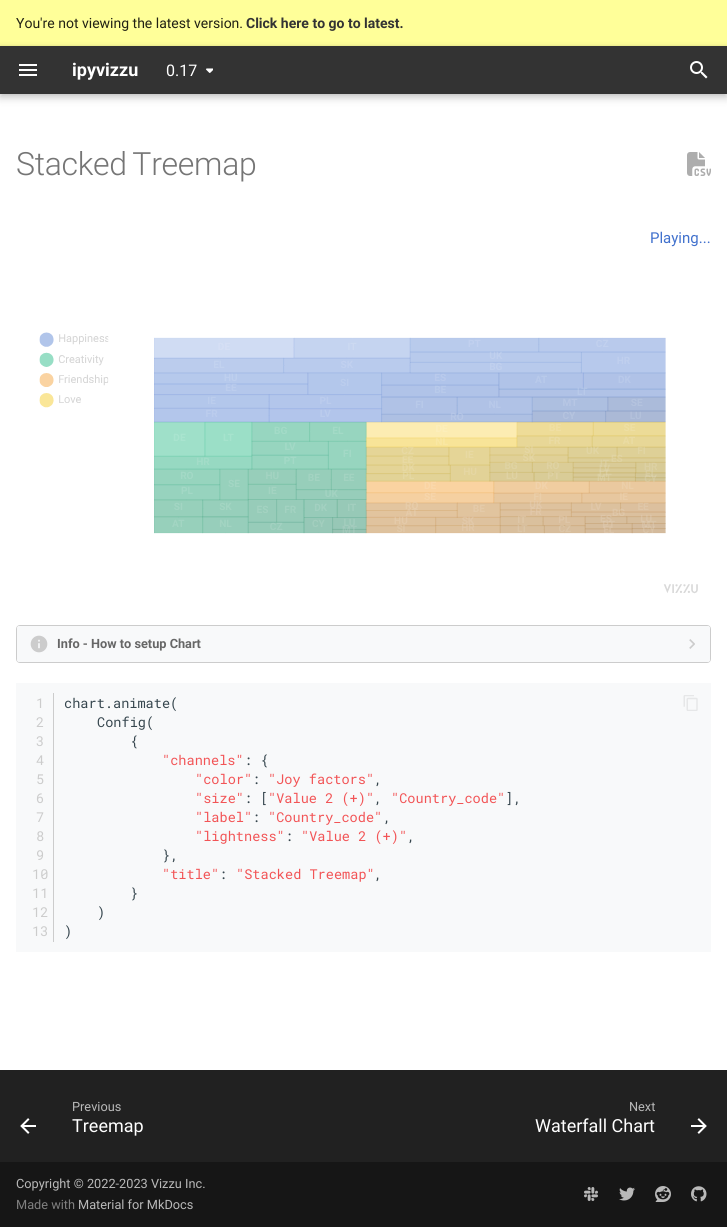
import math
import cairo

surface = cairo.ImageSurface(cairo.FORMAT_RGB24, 727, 1227)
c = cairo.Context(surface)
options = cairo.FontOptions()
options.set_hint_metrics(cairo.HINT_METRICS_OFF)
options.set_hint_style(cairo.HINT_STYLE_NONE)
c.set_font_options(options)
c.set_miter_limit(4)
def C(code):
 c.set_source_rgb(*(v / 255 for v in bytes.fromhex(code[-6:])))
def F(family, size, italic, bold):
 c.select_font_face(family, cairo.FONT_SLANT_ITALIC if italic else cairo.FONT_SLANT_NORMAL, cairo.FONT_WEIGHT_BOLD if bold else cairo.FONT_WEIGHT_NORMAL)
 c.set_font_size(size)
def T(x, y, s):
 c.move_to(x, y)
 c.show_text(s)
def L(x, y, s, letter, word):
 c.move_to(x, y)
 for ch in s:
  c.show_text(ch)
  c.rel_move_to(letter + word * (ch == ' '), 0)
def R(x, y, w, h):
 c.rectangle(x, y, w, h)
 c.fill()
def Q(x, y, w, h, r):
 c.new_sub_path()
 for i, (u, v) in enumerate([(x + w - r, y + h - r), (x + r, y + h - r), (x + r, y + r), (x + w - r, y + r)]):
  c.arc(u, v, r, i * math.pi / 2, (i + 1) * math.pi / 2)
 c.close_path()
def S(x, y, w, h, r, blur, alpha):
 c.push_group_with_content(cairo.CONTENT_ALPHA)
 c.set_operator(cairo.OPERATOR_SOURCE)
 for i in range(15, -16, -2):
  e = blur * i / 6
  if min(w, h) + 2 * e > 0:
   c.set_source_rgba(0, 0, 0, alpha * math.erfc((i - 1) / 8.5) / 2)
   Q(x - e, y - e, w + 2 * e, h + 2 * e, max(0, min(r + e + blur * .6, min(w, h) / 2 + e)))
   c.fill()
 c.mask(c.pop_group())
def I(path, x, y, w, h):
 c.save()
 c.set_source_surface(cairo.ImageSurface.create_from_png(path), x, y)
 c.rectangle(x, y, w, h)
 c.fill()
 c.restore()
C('ffffff')
c.paint()
C('ffff99')
R(0,0,727,46)
F('Roboto',14,0,0)
C('212114')
T(16,28,'You\'re not viewing the latest version.')
F('Roboto',14,0,1)
C('333333')
T(246,28,'Click here to go to latest.')
C('000000')
S(0,50,727,48,0,4,.2)
S(0,46,727,48,0,2,.1)
C('333333')
R(0,46,727,48)
I('1.png',19,64,18,12)
F('Roboto',18,0,1)
C('ffffff')
T(72,76,'ipyvizzu')
F('Roboto',16,0,0)
T(166,76,'0.17')
I('2.png',206,68,7,5)
I('3.png',690,61,18,18)
F('Roboto Light',32,0,0)
C('757575')
L(16,175,'Stacked Treemap',-.3,-2)
I('4.png',687,152,24,24)
F('Roboto',15,0,0)
C('4171cd')
T(650,243,'Playing...')
I('5.png',39,332,659,262)
Q(16.5,625.5,694,37,3.5)
C('cccccc')
c.set_line_width(1)
c.stroke()
C('f8f9fa')
Q(17,626,693,36,2)
c.fill()
I('6.png',30,635,18,18)
F('Roboto',12.75,0,1)
C('666666')
T(57,648,'Info - How to setup Chart')
I('7.png',689,639,6,10)
C('f8f9fa')
R(16,683,695,269)
F('Roboto Mono',13.6,0,0)
C('cccccc')
T(36,708,'1')
C('36464e')
T(64,708,'chart.animate(')
C('cccccc')
T(36,727,'2')
C('36464e')
T(97,727,'Config(')
C('cccccc')
T(36,746,'3')
C('36464e')
T(130,746,'{')
C('cccccc')
T(36,765,'4')
C('f25456')
T(162,765,'"channels"')
C('36464e')
T(244,765,': {')
C('cccccc')
T(36,784,'5')
C('f25456')
T(195,784,'"color"')
C('36464e')
T(252,784,':')
C('f25456')
T(268,784,'"Joy factors"')
C('36464e')
T(374,784,',')
C('cccccc')
T(36,803,'6')
C('f25456')
T(195,803,'"size"')
C('36464e')
T(244,803,': [')
C('f25456')
T(268,803,'"Value 2 (+)"')
C('36464e')
T(374,803,',')
C('f25456')
T(391,803,'"Country_code"')
C('36464e')
T(505,803,'],')
C('cccccc')
T(36,822,'7')
C('f25456')
T(195,822,'"label"')
C('36464e')
T(252,822,':')
C('f25456')
T(268,822,'"Country_code"')
C('36464e')
T(383,822,',')
C('cccccc')
T(36,841,'8')
C('f25456')
T(195,841,'"lightness"')
C('36464e')
T(285,841,':')
C('f25456')
T(301,841,'"Value 2 (+)"')
C('36464e')
T(407,841,',')
C('cccccc')
T(36,860,'9')
C('36464e')
T(162,860,'},')
C('cccccc')
T(32,879,'10')
C('f25456')
T(162,879,'"title"')
C('36464e')
T(219,879,':')
C('f25456')
T(236,879,'"Stacked Treemap"')
C('36464e')
T(374,879,',')
C('cccccc')
T(32,898,'11')
C('36464e')
T(130,898,'}')
C('cccccc')
T(32,917,'12')
C('36464e')
T(97,917,')')
C('cccccc')
R(53,693,1,249)
T(32,936,'13')
C('36464e')
T(64,936,')')
I('8.png',683,695,15,16)
C('212121')
R(0,1070,727,92)
I('9.png',20,1118,16,16)
F('Roboto',12.75,0,0)
C('b9b9b9')
T(72,1111,'Previous')
F('Roboto',18,0,0)
C('ffffff')
T(72,1132,'Treemap')
F('Roboto',12.75,0,0)
C('b9b9b9')
T(629,1111,'Next')
F('Roboto',18,0,0)
C('ffffff')
T(535,1132,'Waterfall Chart')
I('10.png',691,1118,16,16)
C('161616')
R(0,1162,727,65)
F('Roboto',12.75,0,0)
C('b9b9b9')
T(16,1188,'Copyright © 2022-2023 Vizzu Inc.')
C('7f7f7f')
T(16,1209,'Made with')
C('b9b9b9')
T(78,1209,'Material for MkDocs')
I('11.png',584,1187,14,14)
I('12.png',619,1187,16,14)
I('13.png',655,1186,16,16)
I('14.png',691,1186,16,16)
surface.write_to_png('o.png')
